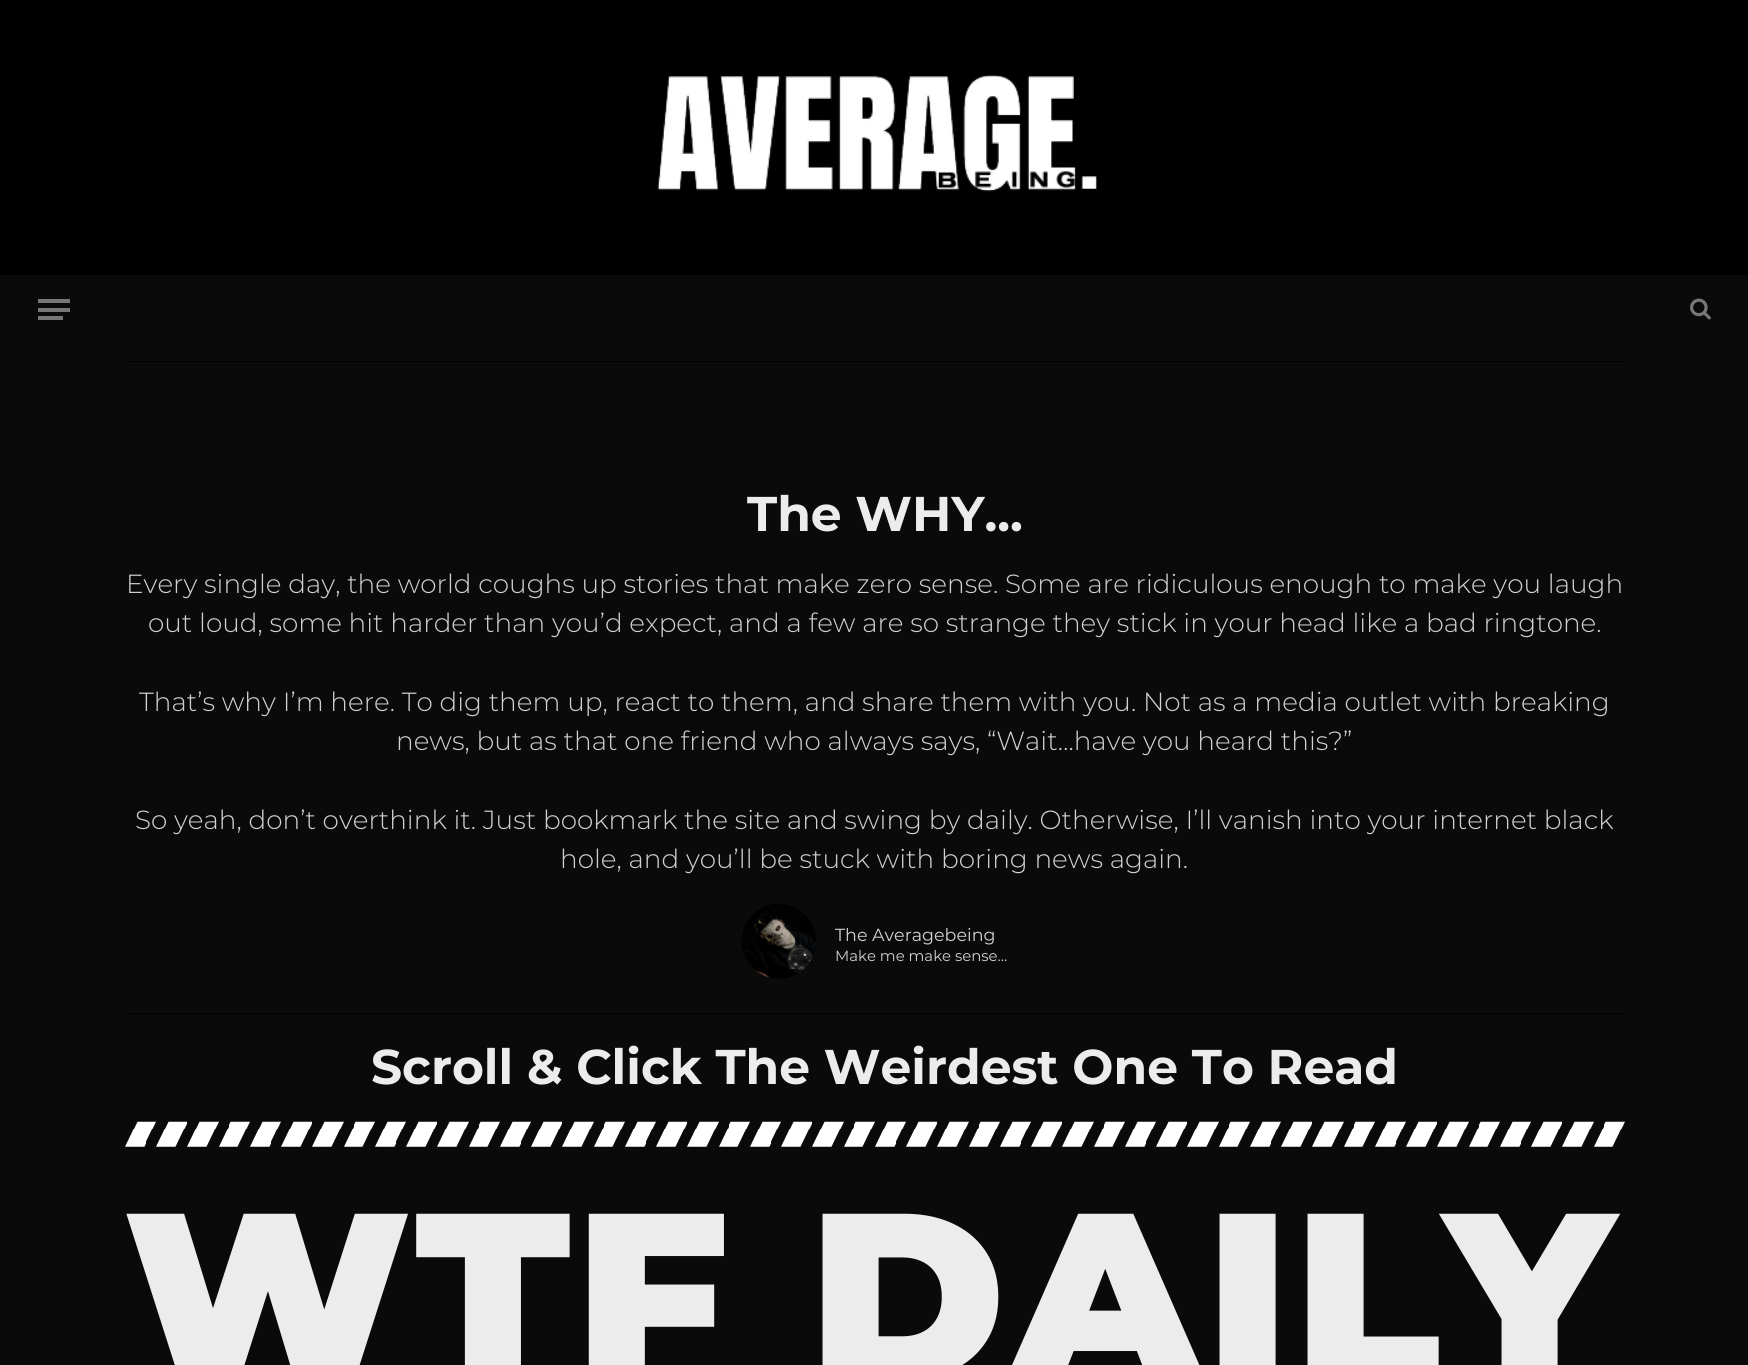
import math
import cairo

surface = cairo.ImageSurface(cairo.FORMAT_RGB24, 1748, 1365)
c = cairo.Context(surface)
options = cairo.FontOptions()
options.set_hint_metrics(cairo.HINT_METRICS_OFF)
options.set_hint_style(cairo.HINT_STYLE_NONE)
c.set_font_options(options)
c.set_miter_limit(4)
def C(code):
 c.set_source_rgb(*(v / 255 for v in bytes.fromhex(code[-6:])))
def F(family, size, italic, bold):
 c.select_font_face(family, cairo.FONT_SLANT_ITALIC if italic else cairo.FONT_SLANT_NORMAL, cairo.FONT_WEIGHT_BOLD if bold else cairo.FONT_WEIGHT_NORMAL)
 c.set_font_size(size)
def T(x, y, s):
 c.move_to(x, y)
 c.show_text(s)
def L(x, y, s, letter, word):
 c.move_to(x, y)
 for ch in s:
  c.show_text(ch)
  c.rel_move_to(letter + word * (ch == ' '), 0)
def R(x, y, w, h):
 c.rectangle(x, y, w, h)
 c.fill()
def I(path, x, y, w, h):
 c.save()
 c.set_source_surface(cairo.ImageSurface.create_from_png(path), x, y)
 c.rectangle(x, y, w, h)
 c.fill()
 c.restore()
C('0a0a0a')
c.paint()
C('000000')
R(0,0,1748,275)
I('1.png',657,75,440,117)
C('777777')
R(38,316,25,4)
R(38,299,32,4)
R(38,308,32,4)
I('2.png',1690,298,21,22)
C('000000')
R(125,361,1500,1)
F('Montserrat',48.75,0,1)
C('ececec')
T(747,531,'The WHY...')
F('Montserrat Light',26.25,0,0)
C('d1d1d1')
T(126,593,'Every single day, the world coughs up stories that make zero sense. Some are ridiculous enough to make you laugh')
T(148,632,'out loud, some hit harder than you’d expect, and a few are so strange they stick in your head like a bad ringtone.')
T(139,711,'That’s why I’m here. To dig them up, react to them, and share them with you. Not as a media outlet with breaking')
T(396,750,'news, but as that one friend who always says, “Wait…have you heard this?”')
T(135,829,'So yeah, don’t overthink it. Just bookmark the site and swing by daily. Otherwise, I’ll vanish into your internet black')
T(560,868,'hole, and you’ll be stuck with boring news again.')
I('3.png',741,904,75,75)
F('Montserrat',17.5,0,0)
T(835,941,'The Averagebeing')
F('Montserrat',14.9,0,0)
T(835,961,'Make me make sense...')
C('000000')
R(125,1013,1500,1)
F('Montserrat',48.75,0,1)
C('ececec')
T(371,1084,'Scroll & Click The Weirdest One To Read')
I('4.png',125,1121,1500,26)
F('Montserrat Black',237.5,0,0)
L(124,1380,'WTF DAILY',4.75,0)
surface.write_to_png('o.png')
